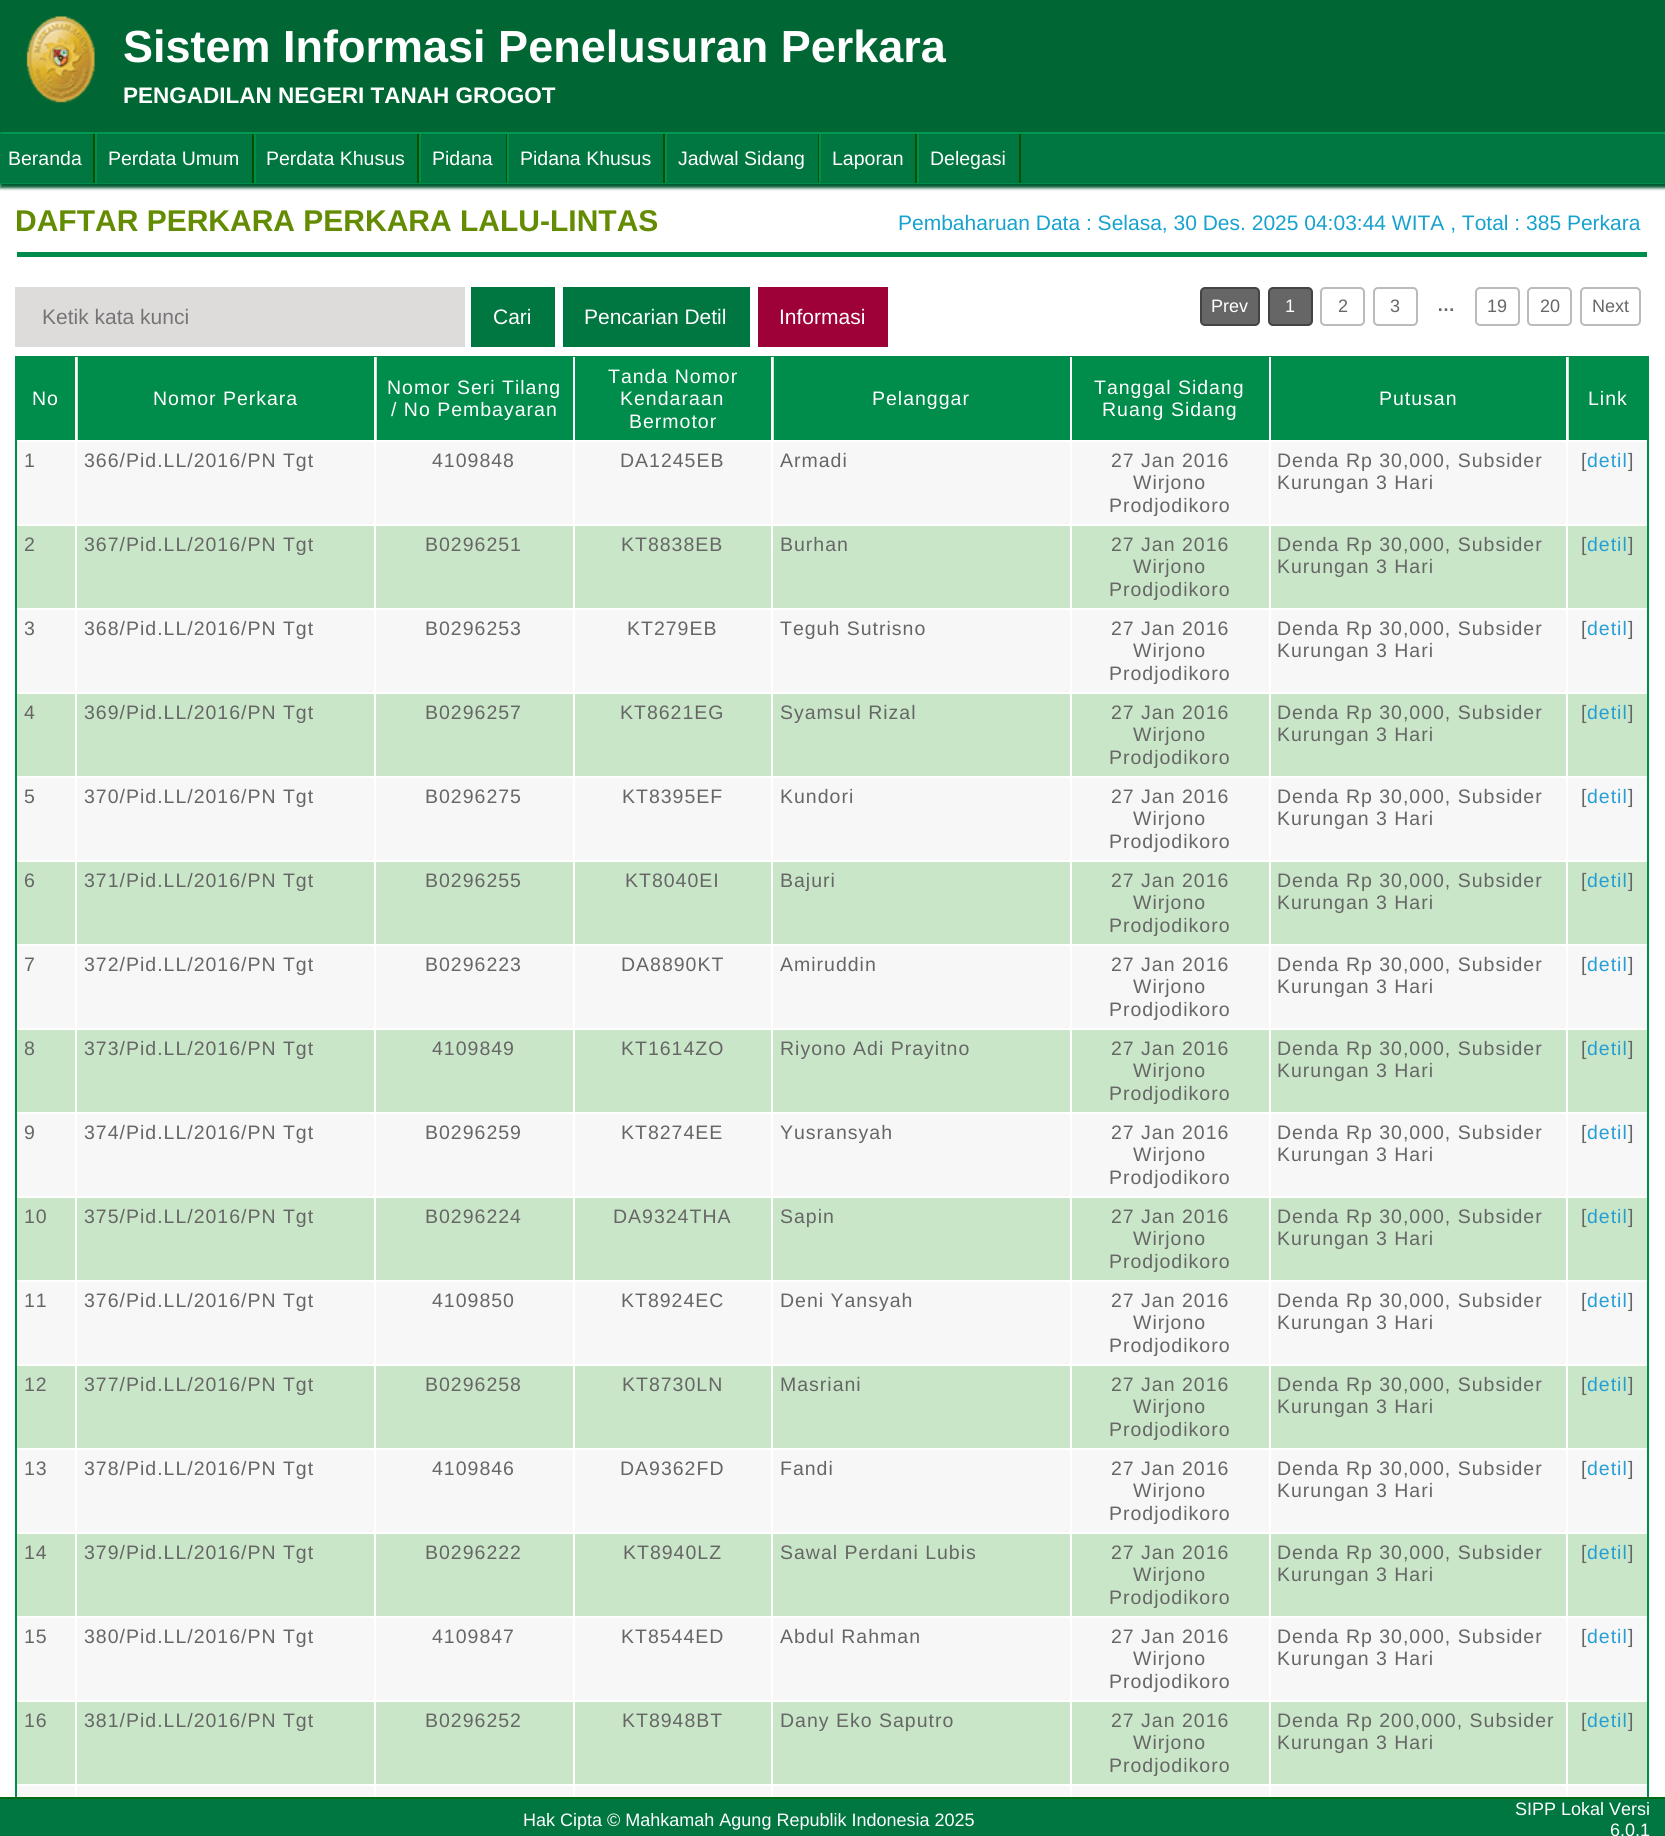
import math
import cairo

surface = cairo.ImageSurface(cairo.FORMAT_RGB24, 1665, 1836)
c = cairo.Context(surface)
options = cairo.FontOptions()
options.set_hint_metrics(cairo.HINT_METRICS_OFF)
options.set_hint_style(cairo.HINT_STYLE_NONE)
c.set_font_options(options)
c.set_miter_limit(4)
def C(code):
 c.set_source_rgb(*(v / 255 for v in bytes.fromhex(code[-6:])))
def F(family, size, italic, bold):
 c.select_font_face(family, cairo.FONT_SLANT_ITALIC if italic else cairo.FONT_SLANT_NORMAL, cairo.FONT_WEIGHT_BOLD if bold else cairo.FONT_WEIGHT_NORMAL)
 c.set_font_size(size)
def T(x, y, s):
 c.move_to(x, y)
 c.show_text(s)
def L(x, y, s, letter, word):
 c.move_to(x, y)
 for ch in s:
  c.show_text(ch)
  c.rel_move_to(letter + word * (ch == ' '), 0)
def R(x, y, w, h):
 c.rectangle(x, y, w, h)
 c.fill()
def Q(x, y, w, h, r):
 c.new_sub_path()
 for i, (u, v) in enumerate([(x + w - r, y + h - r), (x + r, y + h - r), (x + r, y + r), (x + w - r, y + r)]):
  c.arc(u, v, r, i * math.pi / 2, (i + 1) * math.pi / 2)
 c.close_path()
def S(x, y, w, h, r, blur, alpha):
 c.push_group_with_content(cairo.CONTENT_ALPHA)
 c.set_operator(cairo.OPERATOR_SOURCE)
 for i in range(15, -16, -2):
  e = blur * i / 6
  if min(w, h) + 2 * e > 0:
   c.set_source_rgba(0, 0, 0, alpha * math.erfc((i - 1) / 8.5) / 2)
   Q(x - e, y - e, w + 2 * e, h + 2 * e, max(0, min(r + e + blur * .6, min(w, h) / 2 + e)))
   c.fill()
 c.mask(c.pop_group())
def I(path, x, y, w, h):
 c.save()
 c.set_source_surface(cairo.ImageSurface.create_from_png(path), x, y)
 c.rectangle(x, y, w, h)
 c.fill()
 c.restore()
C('ffffff')
c.paint()
C('5b5b5b')
S(0,-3,1665,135,0,7.5,1)
C('006634')
R(0,0,1665,132)
I('1.png',26,16,69,87)
F('Liberation Sans',45,0,1)
C('ffffff')
T(123,62,'Sistem Informasi Penelusuran Perkara')
F('Liberation Sans',22.5,0,1)
T(123,103,'PENGADILAN NEGERI TANAH GROGOT')
C('00582f')
S(0,135,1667,53,0,1.5,1)
C('007640')
R(97,134,1567,49)
C('009751')
c.new_path()
c.move_to(0,132)
c.line_to(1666,132)
c.line_to(1664,134)
c.line_to(2,134)
c.close_path()
c.fill()
C('007640')
c.new_path()
c.move_to(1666,132)
c.line_to(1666,184)
c.line_to(1664,183)
c.line_to(1664,134)
c.close_path()
c.fill()
C('008d4c')
c.new_path()
c.move_to(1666,184)
c.line_to(0,184)
c.line_to(2,183)
c.line_to(1664,183)
c.close_path()
c.fill()
R(0,132,2,53)
C('007640')
R(0,134,93,49)
C('045000')
R(93,134,2,49)
F('Liberation Sans',19.5,0,0)
C('ffffff')
T(8,165,'Beranda')
C('045000')
R(252,134,2,49)
C('008d4c')
R(95,134,2,49)
C('ffffff')
T(108,165,'Perdata Umum')
C('045000')
R(417,134,2,49)
C('008d4c')
R(254,134,2,49)
C('ffffff')
T(266,165,'Perdata Khusus')
C('045000')
R(506,134,1,49)
C('008d4c')
R(419,134,2,49)
C('ffffff')
T(432,165,'Pidana')
C('045000')
R(663,134,2,49)
C('008d4c')
R(507,134,2,49)
C('ffffff')
T(520,165,'Pidana Khusus')
C('045000')
R(818,134,1,49)
C('008d4c')
R(665,134,2,49)
C('ffffff')
T(678,165,'Jadwal Sidang')
C('045000')
R(915,134,2,49)
C('008d4c')
R(819,134,2,49)
C('ffffff')
T(832,165,'Laporan')
C('045000')
R(1019,134,2,49)
C('008d4c')
R(917,134,2,49)
C('ffffff')
T(930,165,'Delegasi')
F('Liberation Sans',30,0,1)
C('648c03')
T(15,231,'DAFTAR PERKARA PERKARA LALU-LINTAS')
F('Liberation Sans',21,0,0)
C('17a2ce')
T(898,230,'Pembaharuan Data : Selasa, 30 Des. 2025 04:03:44 WITA , Total : 385 Perkara')
C('008c4b')
R(17,252,1630,5)
C('666666')
Q(1201,288,58,37,4)
c.fill_preserve()
C('444444')
c.stroke()
F('Liberation Sans',18,0,0)
C('ffffff')
T(1211,312,'Prev')
C('666666')
Q(1269,288,43,37,4)
c.fill_preserve()
C('444444')
c.stroke()
C('ffffff')
T(1285,312,'1')
Q(1321,288,43,37,4)
C('bbbbbb')
c.stroke()
C('666666')
T(1338,312,'2')
Q(1374,288,43,37,4)
C('bbbbbb')
c.stroke()
C('666666')
T(1390,312,'3')
F('Liberation Sans',18,0,1)
T(1437,311,'…')
Q(1476,288,43,37,4)
C('bbbbbb')
c.stroke()
F('Liberation Sans',18,0,0)
C('666666')
T(1487,312,'19')
Q(1528,288,43,37,4)
C('bbbbbb')
c.stroke()
C('666666')
T(1540,312,'20')
Q(1581,288,59,37,4)
C('bbbbbb')
c.stroke()
C('666666')
T(1592,312,'Next')
C('dedbdb')
R(15,287,450,60)
F('Liberation Sans',21,0,0)
C('757575')
T(42,324,'Ketik kata kunci')
C('007640')
R(471,287,84,60)
C('ffffff')
T(493,324,'Cari')
C('007640')
R(563,287,187,60)
C('ffffff')
T(584,324,'Pencarian Detil')
C('9e0138')
R(758,287,130,60)
C('ffffff')
T(779,324,'Informasi')
c.rectangle(16,357,1632,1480)
C('008c4b')
c.stroke()
C('f7f7f7')
R(17,1786,1630,11)
R(17,442,1630,82)
C('c9e6c8')
R(17,526,1630,82)
C('f7f7f7')
R(17,610,1630,82)
C('c9e6c8')
R(17,694,1630,82)
C('f7f7f7')
R(17,778,1630,82)
C('c9e6c8')
R(17,862,1630,82)
C('f7f7f7')
R(17,946,1630,82)
C('c9e6c8')
R(17,1030,1630,82)
C('f7f7f7')
R(17,1114,1630,82)
C('c9e6c8')
R(17,1198,1630,82)
C('f7f7f7')
R(17,1282,1630,82)
C('c9e6c8')
R(17,1366,1630,82)
C('f7f7f7')
R(17,1450,1630,82)
C('c9e6c8')
R(17,1534,1630,82)
C('f7f7f7')
R(17,1618,1630,82)
C('c9e6c8')
R(17,1702,1630,82)
C('ffffff')
R(75,440,2,1357)
C('c9e6c8')
R(77,357,1492,83)
C('ffffff')
R(374,357,2,1440)
R(573,357,2,1440)
R(771,357,2,1440)
R(1070,357,2,1440)
R(1269,357,2,1440)
R(1566,357,2,1440)
C('008c4b')
R(17,358,58,82)
F('Liberation Sans',19.5,0,0)
C('ffffff')
L(32,405,'No',1,0)
C('008c4b')
R(78,357,296,83)
C('ffffff')
R(75,357,2,1)
L(153,405,'Nomor Perkara',1,0)
C('008c4b')
R(377,357,196,83)
C('ffffff')
L(387,394,'Nomor Seri Tilang',1,0)
L(391,416,'/ No Pembayaran',1,0)
C('008c4b')
R(575,357,196,83)
C('ffffff')
L(608,383,'Tanda Nomor',1,0)
L(620,405,'Kendaraan',1,0)
L(629,428,'Bermotor',1,0)
C('008c4b')
R(774,357,296,83)
C('ffffff')
L(872,405,'Pelanggar',1,0)
C('008c4b')
R(1072,357,197,83)
C('ffffff')
L(1094,394,'Tanggal Sidang',1,0)
L(1102,416,'Ruang Sidang',1,0)
C('008c4b')
R(1271,357,295,83)
C('ffffff')
L(1379,405,'Putusan',1,0)
C('008c4b')
R(1569,358,78,82)
C('ffffff')
L(1588,405,'Link',1,0)
C('666666')
L(24,467,'1',1,0)
L(84,467,'366/Pid.LL/2016/PN Tgt',1,0)
L(432,467,'4109848',1,0)
L(620,467,'DA1245EB',1,0)
L(780,467,'Armadi',1,0)
L(1111,467,'27 Jan 2016',1,0)
L(1133,489,'Wirjono',1,0)
L(1109,512,'Prodjodikoro',1,0)
L(1277,467,'Denda Rp 30,000, Subsider',1,0)
L(1277,489,'Kurungan 3 Hari',1,0)
L(1581,467,'[',1,0)
C('259fd3')
L(1587,467,'detil',1,0)
C('666666')
L(1628,467,']',1,0)
L(24,551,'2',1,0)
L(84,551,'367/Pid.LL/2016/PN Tgt',1,0)
L(425,551,'B0296251',1,0)
L(621,551,'KT8838EB',1,0)
L(780,551,'Burhan',1,0)
L(1111,551,'27 Jan 2016',1,0)
L(1133,573,'Wirjono',1,0)
L(1109,596,'Prodjodikoro',1,0)
L(1277,551,'Denda Rp 30,000, Subsider',1,0)
L(1277,573,'Kurungan 3 Hari',1,0)
L(1581,551,'[',1,0)
C('259fd3')
L(1587,551,'detil',1,0)
C('666666')
L(1628,551,']',1,0)
L(24,635,'3',1,0)
L(84,635,'368/Pid.LL/2016/PN Tgt',1,0)
L(425,635,'B0296253',1,0)
L(627,635,'KT279EB',1,0)
L(780,635,'Teguh Sutrisno',1,0)
L(1111,635,'27 Jan 2016',1,0)
L(1133,657,'Wirjono',1,0)
L(1109,680,'Prodjodikoro',1,0)
L(1277,635,'Denda Rp 30,000, Subsider',1,0)
L(1277,657,'Kurungan 3 Hari',1,0)
L(1581,635,'[',1,0)
C('259fd3')
L(1587,635,'detil',1,0)
C('666666')
L(1628,635,']',1,0)
L(24,719,'4',1,0)
L(84,719,'369/Pid.LL/2016/PN Tgt',1,0)
L(425,719,'B0296257',1,0)
L(620,719,'KT8621EG',1,0)
L(780,719,'Syamsul Rizal',1,0)
L(1111,719,'27 Jan 2016',1,0)
L(1133,741,'Wirjono',1,0)
L(1109,764,'Prodjodikoro',1,0)
L(1277,719,'Denda Rp 30,000, Subsider',1,0)
L(1277,741,'Kurungan 3 Hari',1,0)
L(1581,719,'[',1,0)
C('259fd3')
L(1587,719,'detil',1,0)
C('666666')
L(1628,719,']',1,0)
L(24,803,'5',1,0)
L(84,803,'370/Pid.LL/2016/PN Tgt',1,0)
L(425,803,'B0296275',1,0)
L(622,803,'KT8395EF',1,0)
L(780,803,'Kundori',1,0)
L(1111,803,'27 Jan 2016',1,0)
L(1133,825,'Wirjono',1,0)
L(1109,848,'Prodjodikoro',1,0)
L(1277,803,'Denda Rp 30,000, Subsider',1,0)
L(1277,825,'Kurungan 3 Hari',1,0)
L(1581,803,'[',1,0)
C('259fd3')
L(1587,803,'detil',1,0)
C('666666')
L(1628,803,']',1,0)
L(24,887,'6',1,0)
L(84,887,'371/Pid.LL/2016/PN Tgt',1,0)
L(425,887,'B0296255',1,0)
L(625,887,'KT8040EI',1,0)
L(780,887,'Bajuri',1,0)
L(1111,887,'27 Jan 2016',1,0)
L(1133,909,'Wirjono',1,0)
L(1109,932,'Prodjodikoro',1,0)
L(1277,887,'Denda Rp 30,000, Subsider',1,0)
L(1277,909,'Kurungan 3 Hari',1,0)
L(1581,887,'[',1,0)
C('259fd3')
L(1587,887,'detil',1,0)
C('666666')
L(1628,887,']',1,0)
L(24,971,'7',1,0)
L(84,971,'372/Pid.LL/2016/PN Tgt',1,0)
L(425,971,'B0296223',1,0)
L(621,971,'DA8890KT',1,0)
L(780,971,'Amiruddin',1,0)
L(1111,971,'27 Jan 2016',1,0)
L(1133,993,'Wirjono',1,0)
L(1109,1016,'Prodjodikoro',1,0)
L(1277,971,'Denda Rp 30,000, Subsider',1,0)
L(1277,993,'Kurungan 3 Hari',1,0)
L(1581,971,'[',1,0)
C('259fd3')
L(1587,971,'detil',1,0)
C('666666')
L(1628,971,']',1,0)
L(24,1055,'8',1,0)
L(84,1055,'373/Pid.LL/2016/PN Tgt',1,0)
L(432,1055,'4109849',1,0)
L(621,1055,'KT1614ZO',1,0)
L(780,1055,'Riyono Adi Prayitno',1,0)
L(1111,1055,'27 Jan 2016',1,0)
L(1133,1077,'Wirjono',1,0)
L(1109,1100,'Prodjodikoro',1,0)
L(1277,1055,'Denda Rp 30,000, Subsider',1,0)
L(1277,1077,'Kurungan 3 Hari',1,0)
L(1581,1055,'[',1,0)
C('259fd3')
L(1587,1055,'detil',1,0)
C('666666')
L(1628,1055,']',1,0)
L(24,1139,'9',1,0)
L(84,1139,'374/Pid.LL/2016/PN Tgt',1,0)
L(425,1139,'B0296259',1,0)
L(621,1139,'KT8274EE',1,0)
L(780,1139,'Yusransyah',1,0)
L(1111,1139,'27 Jan 2016',1,0)
L(1133,1161,'Wirjono',1,0)
L(1109,1184,'Prodjodikoro',1,0)
L(1277,1139,'Denda Rp 30,000, Subsider',1,0)
L(1277,1161,'Kurungan 3 Hari',1,0)
L(1581,1139,'[',1,0)
C('259fd3')
L(1587,1139,'detil',1,0)
C('666666')
L(1628,1139,']',1,0)
L(24,1223,'10',1,0)
L(84,1223,'375/Pid.LL/2016/PN Tgt',1,0)
L(425,1223,'B0296224',1,0)
L(613,1223,'DA9324THA',1,0)
L(780,1223,'Sapin',1,0)
L(1111,1223,'27 Jan 2016',1,0)
L(1133,1245,'Wirjono',1,0)
L(1109,1268,'Prodjodikoro',1,0)
L(1277,1223,'Denda Rp 30,000, Subsider',1,0)
L(1277,1245,'Kurungan 3 Hari',1,0)
L(1581,1223,'[',1,0)
C('259fd3')
L(1587,1223,'detil',1,0)
C('666666')
L(1628,1223,']',1,0)
L(24,1307,'11',1,0)
L(84,1307,'376/Pid.LL/2016/PN Tgt',1,0)
L(432,1307,'4109850',1,0)
L(621,1307,'KT8924EC',1,0)
L(780,1307,'Deni Yansyah',1,0)
L(1111,1307,'27 Jan 2016',1,0)
L(1133,1329,'Wirjono',1,0)
L(1109,1352,'Prodjodikoro',1,0)
L(1277,1307,'Denda Rp 30,000, Subsider',1,0)
L(1277,1329,'Kurungan 3 Hari',1,0)
L(1581,1307,'[',1,0)
C('259fd3')
L(1587,1307,'detil',1,0)
C('666666')
L(1628,1307,']',1,0)
L(24,1391,'12',1,0)
L(84,1391,'377/Pid.LL/2016/PN Tgt',1,0)
L(425,1391,'B0296258',1,0)
L(622,1391,'KT8730LN',1,0)
L(780,1391,'Masriani',1,0)
L(1111,1391,'27 Jan 2016',1,0)
L(1133,1413,'Wirjono',1,0)
L(1109,1436,'Prodjodikoro',1,0)
L(1277,1391,'Denda Rp 30,000, Subsider',1,0)
L(1277,1413,'Kurungan 3 Hari',1,0)
L(1581,1391,'[',1,0)
C('259fd3')
L(1587,1391,'detil',1,0)
C('666666')
L(1628,1391,']',1,0)
L(24,1475,'13',1,0)
L(84,1475,'378/Pid.LL/2016/PN Tgt',1,0)
L(432,1475,'4109846',1,0)
L(620,1475,'DA9362FD',1,0)
L(780,1475,'Fandi',1,0)
L(1111,1475,'27 Jan 2016',1,0)
L(1133,1497,'Wirjono',1,0)
L(1109,1520,'Prodjodikoro',1,0)
L(1277,1475,'Denda Rp 30,000, Subsider',1,0)
L(1277,1497,'Kurungan 3 Hari',1,0)
L(1581,1475,'[',1,0)
C('259fd3')
L(1587,1475,'detil',1,0)
C('666666')
L(1628,1475,']',1,0)
L(24,1559,'14',1,0)
L(84,1559,'379/Pid.LL/2016/PN Tgt',1,0)
L(425,1559,'B0296222',1,0)
L(623,1559,'KT8940LZ',1,0)
L(780,1559,'Sawal Perdani Lubis',1,0)
L(1111,1559,'27 Jan 2016',1,0)
L(1133,1581,'Wirjono',1,0)
L(1109,1604,'Prodjodikoro',1,0)
L(1277,1559,'Denda Rp 30,000, Subsider',1,0)
L(1277,1581,'Kurungan 3 Hari',1,0)
L(1581,1559,'[',1,0)
C('259fd3')
L(1587,1559,'detil',1,0)
C('666666')
L(1628,1559,']',1,0)
L(24,1643,'15',1,0)
L(84,1643,'380/Pid.LL/2016/PN Tgt',1,0)
L(432,1643,'4109847',1,0)
L(621,1643,'KT8544ED',1,0)
L(780,1643,'Abdul Rahman',1,0)
L(1111,1643,'27 Jan 2016',1,0)
L(1133,1665,'Wirjono',1,0)
L(1109,1688,'Prodjodikoro',1,0)
L(1277,1643,'Denda Rp 30,000, Subsider',1,0)
L(1277,1665,'Kurungan 3 Hari',1,0)
L(1581,1643,'[',1,0)
C('259fd3')
L(1587,1643,'detil',1,0)
C('666666')
L(1628,1643,']',1,0)
L(24,1727,'16',1,0)
L(84,1727,'381/Pid.LL/2016/PN Tgt',1,0)
L(425,1727,'B0296252',1,0)
L(622,1727,'KT8948BT',1,0)
L(780,1727,'Dany Eko Saputro',1,0)
L(1111,1727,'27 Jan 2016',1,0)
L(1133,1749,'Wirjono',1,0)
L(1109,1772,'Prodjodikoro',1,0)
L(1277,1727,'Denda Rp 200,000, Subsider',1,0)
L(1277,1749,'Kurungan 3 Hari',1,0)
L(1581,1727,'[',1,0)
C('259fd3')
L(1587,1727,'detil',1,0)
C('666666')
L(1628,1727,']',1,0)
C('007640')
R(0,1799,1665,37)
C('006a14')
R(0,1797,1665,2)
F('Liberation Sans',18,0,0)
C('ffffff')
T(523,1826,'Hak Cipta © Mahkamah Agung Republik Indonesia 2025')
T(1515,1815,'SIPP Lokal Versi')
T(1610,1836,'6.0.1')
surface.write_to_png('o.png')
